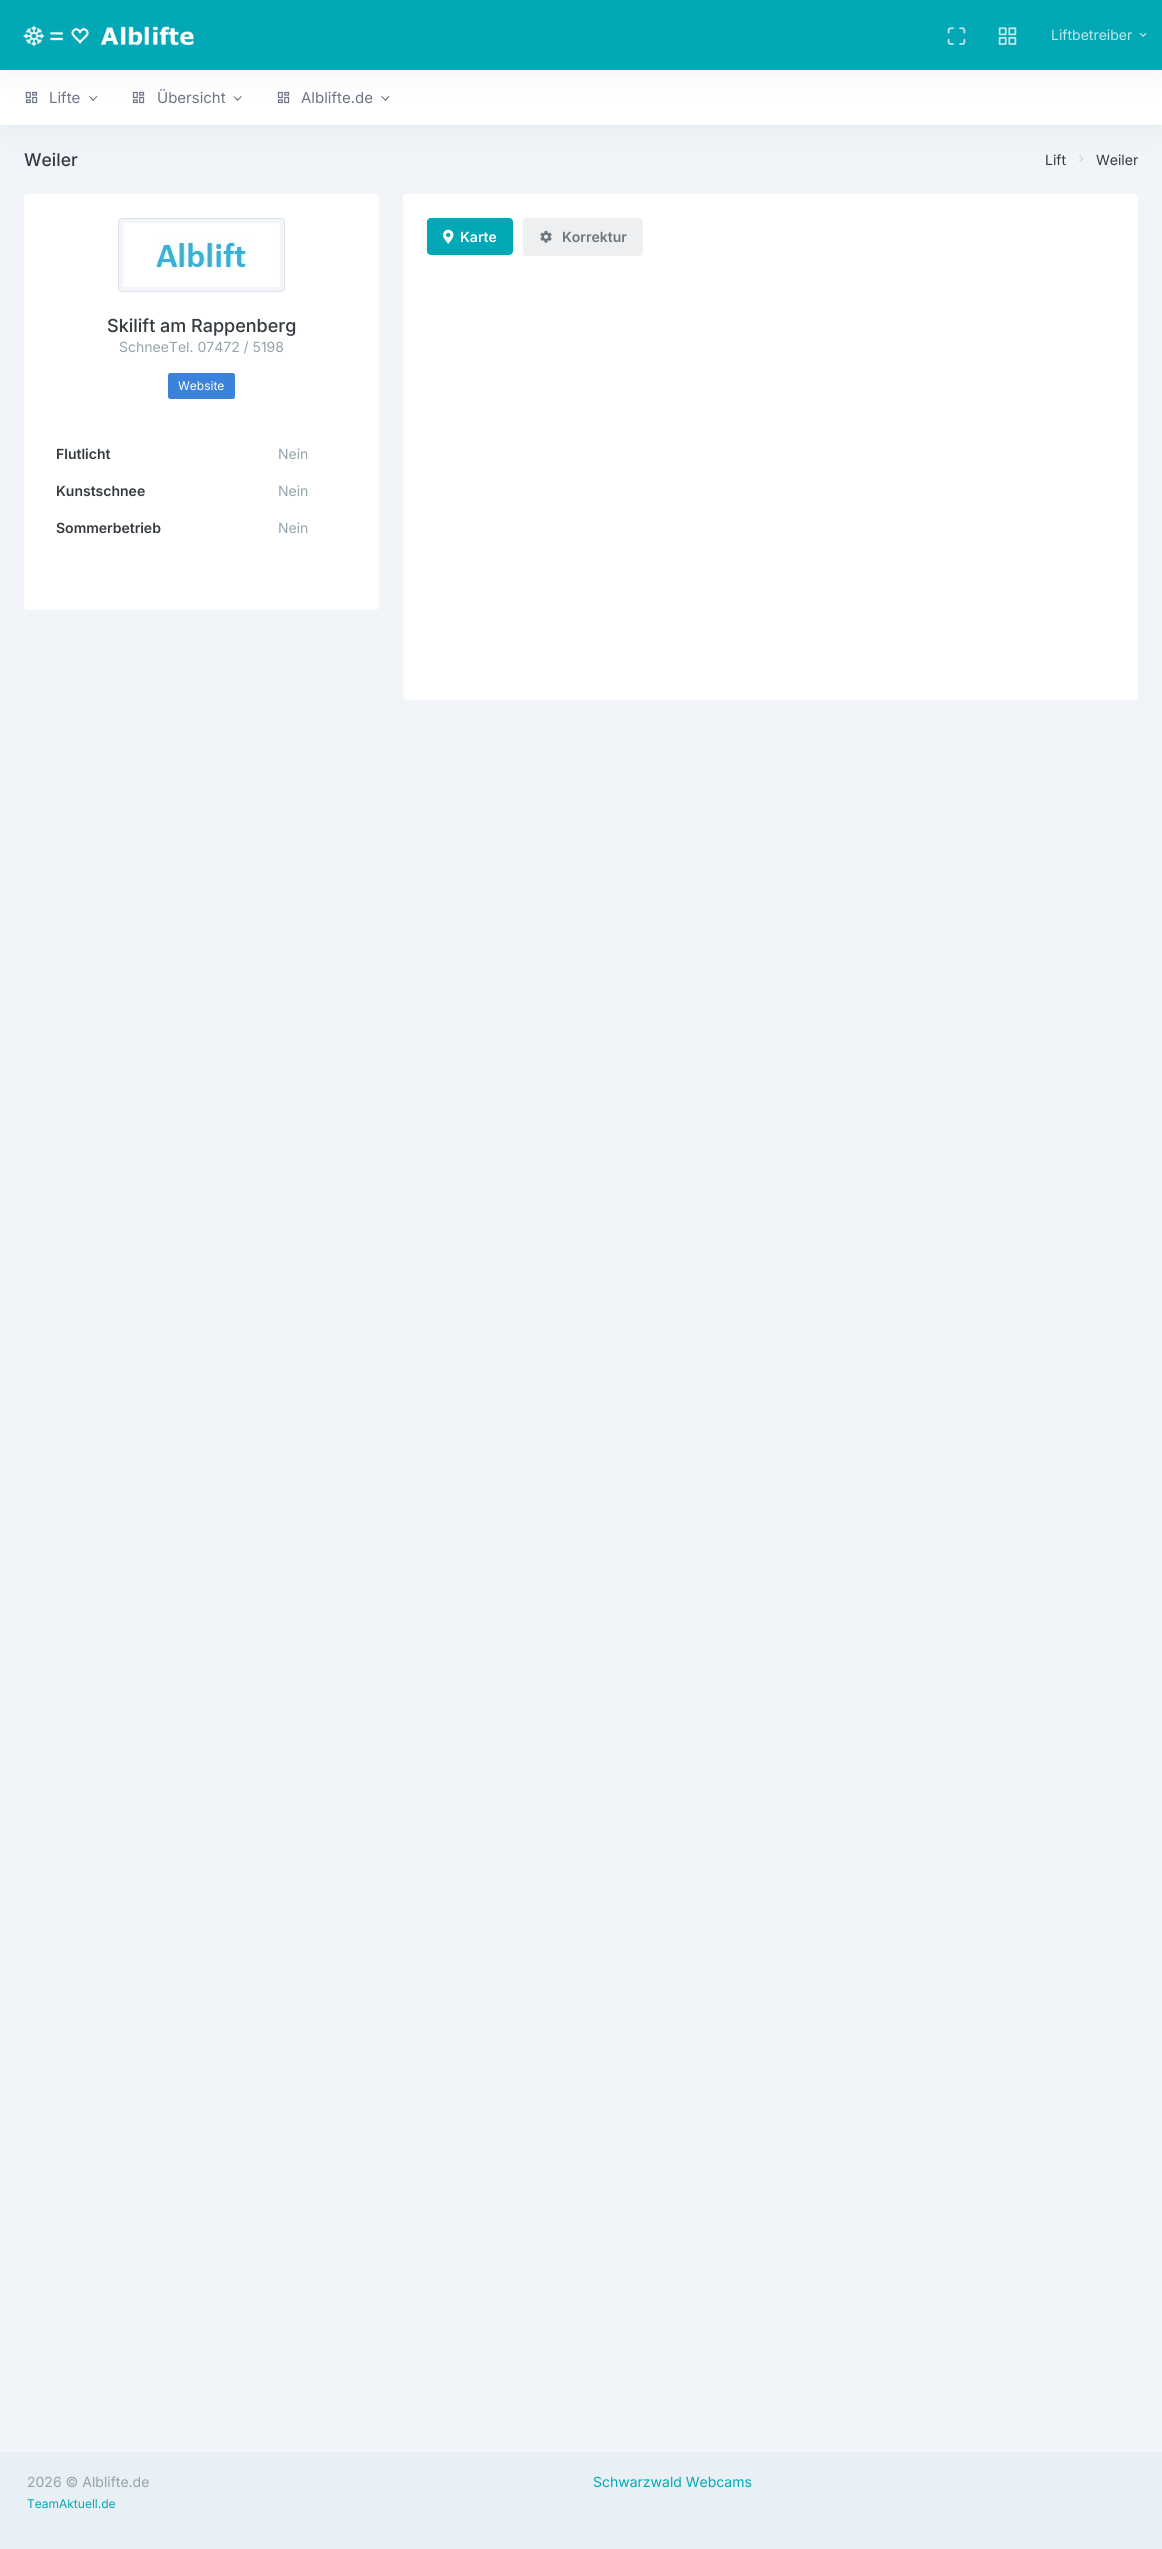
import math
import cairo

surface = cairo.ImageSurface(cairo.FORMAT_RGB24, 1162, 2549)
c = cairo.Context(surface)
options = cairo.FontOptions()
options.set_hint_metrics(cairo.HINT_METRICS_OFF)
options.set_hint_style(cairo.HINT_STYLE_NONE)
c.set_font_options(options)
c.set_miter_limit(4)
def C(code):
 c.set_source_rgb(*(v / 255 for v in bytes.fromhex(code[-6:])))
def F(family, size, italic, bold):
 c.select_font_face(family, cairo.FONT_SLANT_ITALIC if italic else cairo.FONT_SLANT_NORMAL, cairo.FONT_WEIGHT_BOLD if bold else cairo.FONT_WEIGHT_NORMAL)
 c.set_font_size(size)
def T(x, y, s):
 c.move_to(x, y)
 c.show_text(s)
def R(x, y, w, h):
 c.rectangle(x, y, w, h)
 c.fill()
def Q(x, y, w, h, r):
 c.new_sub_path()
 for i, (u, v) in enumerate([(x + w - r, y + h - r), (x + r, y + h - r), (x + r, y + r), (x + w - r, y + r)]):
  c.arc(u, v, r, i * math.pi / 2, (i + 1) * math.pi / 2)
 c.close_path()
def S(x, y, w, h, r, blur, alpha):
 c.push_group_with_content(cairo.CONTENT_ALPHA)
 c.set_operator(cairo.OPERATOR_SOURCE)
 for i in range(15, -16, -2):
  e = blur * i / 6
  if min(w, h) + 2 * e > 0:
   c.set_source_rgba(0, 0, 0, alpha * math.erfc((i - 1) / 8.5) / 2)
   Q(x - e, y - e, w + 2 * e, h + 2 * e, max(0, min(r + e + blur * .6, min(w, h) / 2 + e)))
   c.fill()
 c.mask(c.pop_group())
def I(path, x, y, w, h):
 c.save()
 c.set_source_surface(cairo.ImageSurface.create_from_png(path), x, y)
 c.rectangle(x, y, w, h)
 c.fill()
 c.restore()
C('f1f5f9')
c.paint()
I('6.png',1079,155,4,7)
C('9aa1ab')
S(0,70,1162,55,0,17.5,.15)
C('ffffff')
R(0,70,1162,55)
I('5.png',25,91,13,13)
C('6e7488')
c.new_path()
c.move_to(92.5,100)
c.line_to(96.5,96)
c.line_to(97.5,96.5)
c.line_to(93,101)
c.close_path()
c.fill()
c.new_path()
c.move_to(89,96.5)
c.line_to(89.5,96)
c.line_to(94,100)
c.line_to(93,101)
c.close_path()
c.fill()
I('5.png',132,91,13,13)
c.new_path()
c.move_to(237,100)
c.line_to(241,96)
c.line_to(242,96.5)
c.line_to(237.5,101)
c.close_path()
c.fill()
c.new_path()
c.move_to(233.5,96.5)
c.line_to(234,96)
c.line_to(238.5,100)
c.line_to(237.5,101)
c.close_path()
c.fill()
I('5.png',277,91,13,13)
c.new_path()
c.move_to(384.5,100)
c.line_to(388.5,96)
c.line_to(389.5,96.5)
c.line_to(385.5,101)
c.close_path()
c.fill()
c.new_path()
c.move_to(381,96.5)
c.line_to(382,96)
c.line_to(386,100)
c.line_to(385.5,101)
c.close_path()
c.fill()
C('9aa1ab')
S(0,0,1162,70,0,17.5,.15)
C('02a8b5')
R(0,0,1162,70)
I('1.png',23,26,171,20)
I('2.png',947,27,19,18)
I('3.png',998,27,19,18)
F('Inter',14,0,0)
C('c0e9ed')
T(1051,40,'Liftbetreiber')
I('4.png',1139,32,8,5)
F('Inter',15,0,0)
C('6e7488')
T(49,103,'Lifte')
T(157,103,'Übersicht')
T(301,103,'Alblifte.de')
F('Inter Medium',17.5,0,0)
C('323a46')
T(24,166,'Weiler')
F('Inter',14,0,0)
C('343a40')
T(1045,165,'Lift')
T(1096,165,'Weiler')
C('ffffff')
Q(403,194,735,506,4)
c.fill()
C('02a8b5')
Q(427,218,86,37,4)
c.fill()
I('7.png',443,229,11,15)
F('Inter SemiBold',14,0,0)
C('ffffff')
T(460,242,'Karte')
C('edeff1')
Q(523,218,120,38,4)
c.fill()
I('8.png',540,230,12,13)
C('6c757d')
T(562,242,'Korrektur')
C('ffffff')
Q(24,194,355,416,4)
c.fill()
C('f1f5f9')
Q(118.5,218.5,166,73,3.5)
c.fill_preserve()
C('dee2e6')
c.set_line_width(1)
c.stroke()
I('9.png',123,223,157,64)
F('Inter Medium',18,0,0)
C('343a40')
T(107,332,'Skilift am Rappenberg')
F('Inter',14,0,0)
C('93a4ad')
T(119,352,'SchneeTel. 07472 / 5198')
C('3b82da')
Q(168.5,373.5,66,25,2)
c.fill_preserve()
c.stroke()
F('Inter',12,0,0)
C('ffffff')
T(178,390,'Website')
F('Inter SemiBold',14,0,0)
C('343a40')
T(56,459,'Flutlicht')
F('Inter',14,0,0)
C('93a4ad')
T(278,459,'Nein')
F('Inter SemiBold',14,0,0)
C('343a40')
T(56,496,'Kunstschnee')
F('Inter',14,0,0)
C('93a4ad')
T(278,496,'Nein')
F('Inter SemiBold',14,0,0)
C('343a40')
T(56,533,'Sommerbetrieb')
F('Inter',14,0,0)
C('93a4ad')
T(278,533,'Nein')
C('e8eff5')
R(0,2452,1162,97)
C('93a4ad')
T(27,2487,'2026 © Alblifte.de')
F('Inter',12,0,0)
C('02a8b5')
T(27,2508,'TeamAktuell.de')
F('Inter',14,0,0)
T(593,2487,'Schwarzwald Webcams')
surface.write_to_png('o.png')
